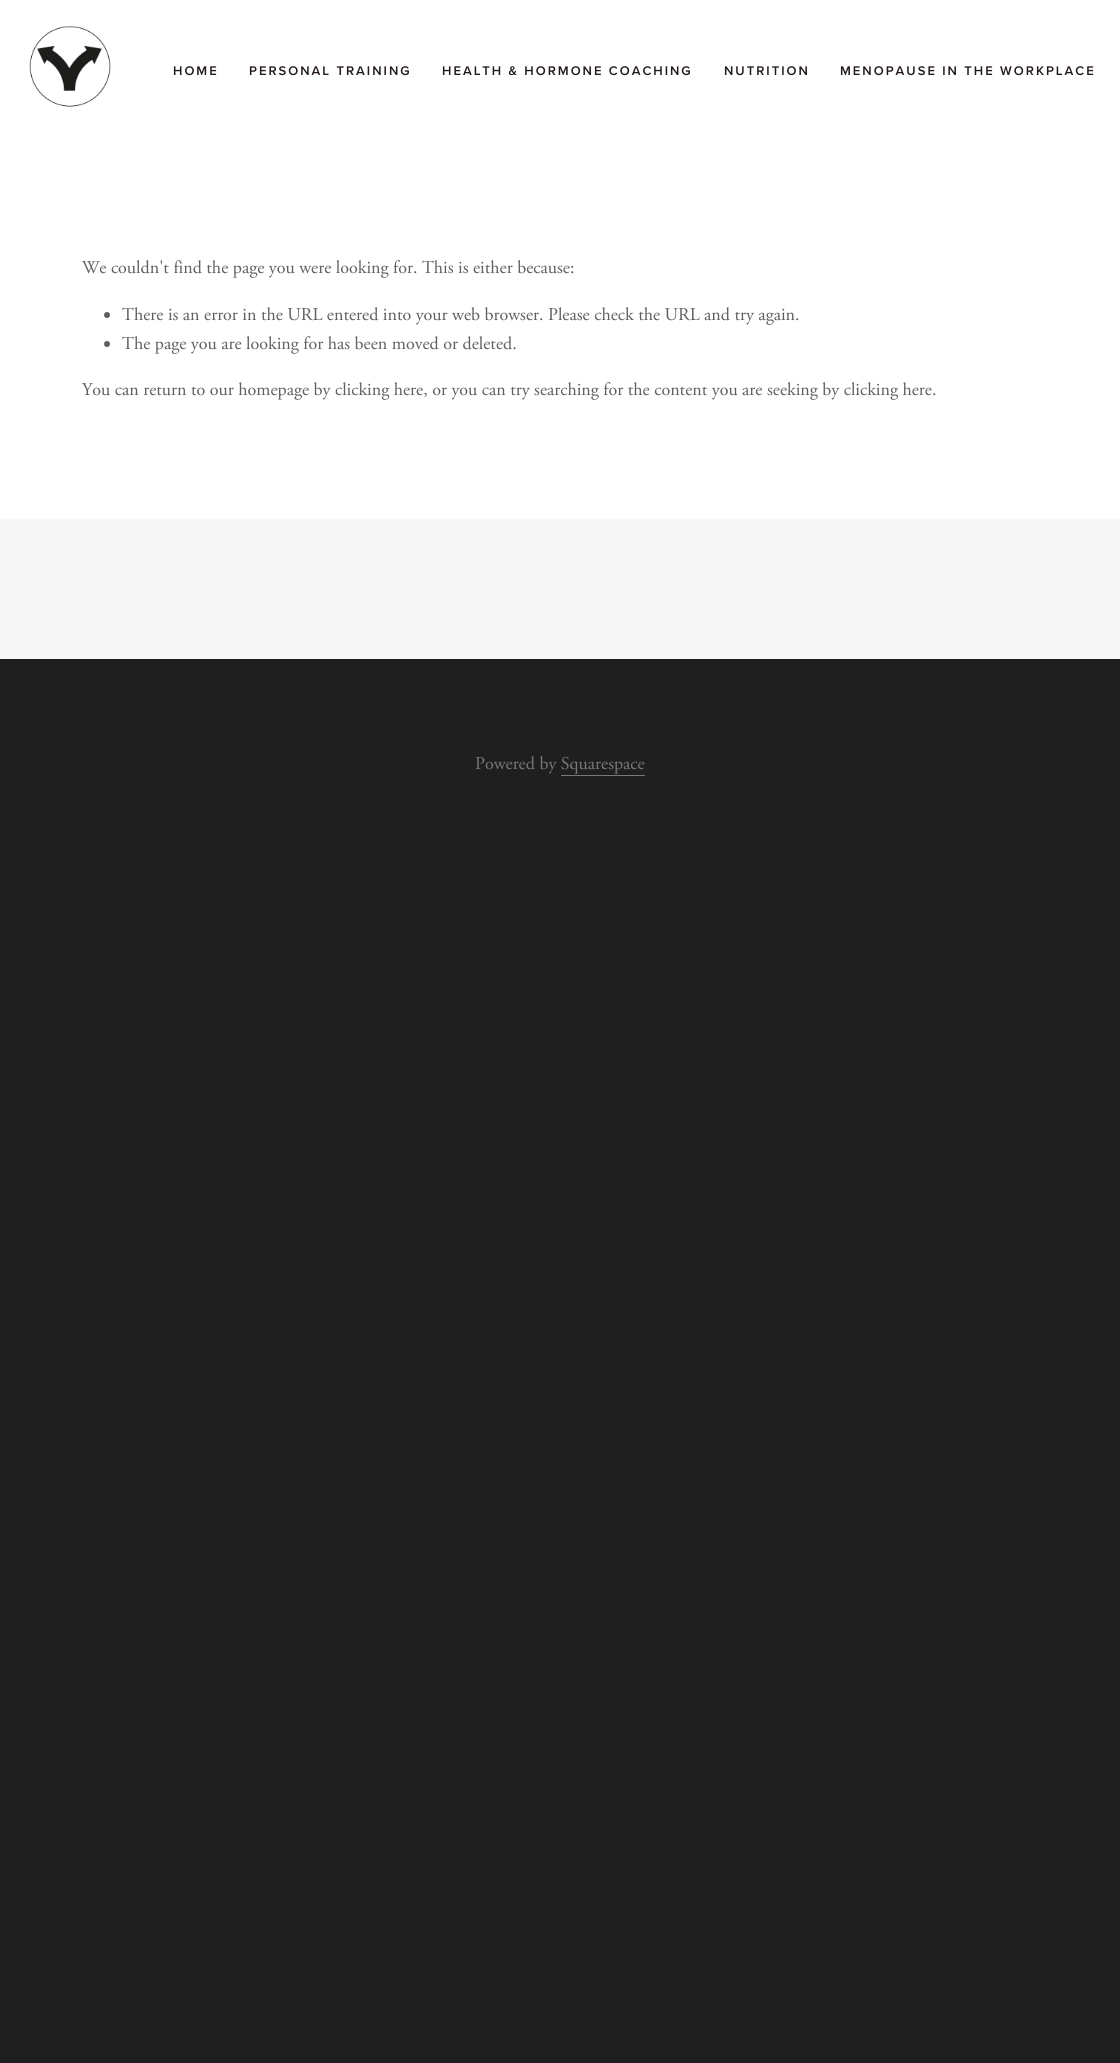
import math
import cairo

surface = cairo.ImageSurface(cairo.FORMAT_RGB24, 1120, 2063)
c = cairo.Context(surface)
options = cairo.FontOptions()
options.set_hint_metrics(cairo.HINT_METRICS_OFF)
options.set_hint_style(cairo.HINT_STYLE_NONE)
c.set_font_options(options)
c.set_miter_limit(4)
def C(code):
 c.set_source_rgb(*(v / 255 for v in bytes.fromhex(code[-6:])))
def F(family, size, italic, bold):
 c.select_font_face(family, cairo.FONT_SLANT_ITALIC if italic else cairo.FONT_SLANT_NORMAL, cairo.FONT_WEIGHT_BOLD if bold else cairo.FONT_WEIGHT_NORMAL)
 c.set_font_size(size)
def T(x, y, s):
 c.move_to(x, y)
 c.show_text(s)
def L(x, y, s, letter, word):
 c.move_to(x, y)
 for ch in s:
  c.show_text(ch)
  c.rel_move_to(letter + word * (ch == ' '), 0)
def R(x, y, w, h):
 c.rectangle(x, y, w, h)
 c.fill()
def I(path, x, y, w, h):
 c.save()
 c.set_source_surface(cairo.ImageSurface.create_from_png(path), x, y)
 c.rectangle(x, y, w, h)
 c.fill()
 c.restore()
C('1f1f1f')
c.paint()
C('ffffff')
R(0,0,1120,519)
I('1.png',29,26,82,81)
F('Proxima Nova SemiBold',13,0,0)
C('231a1a')
L(173,75,'HOME',2,0)
L(249,75,'PERSONAL TRAINING',2,0)
L(442,75,'HEALTH & HORMONE COACHING',2,0)
L(724,75,'NUTRITION',2,0)
L(840,75,'MENOPAUSE IN THE WORKPLACE',2,0)
F('Adobe Garamond',18,0,0)
C('5f5f5f')
T(82,273,'We couldn\'t find the page you were looking for. This is either because:')
c.new_path()
c.arc(107,315,3,0,2 * math.pi)
c.fill()
T(122,320,'There is an error in the URL entered into your web browser. Please check the URL and try again.')
c.new_path()
c.arc(107,344,3,0,2 * math.pi)
c.fill()
T(122,349,'The page you are looking for has been moved or deleted.')
T(82,395,'You can return to our homepage by clicking here, or you can try searching for the content you are seeking by clicking here.')
C('f7f7f7')
R(0,519,1120,140)
C('797979')
T(475,769,'Powered by Squarespace')
R(561,775,84,1)
surface.write_to_png('o.png')
